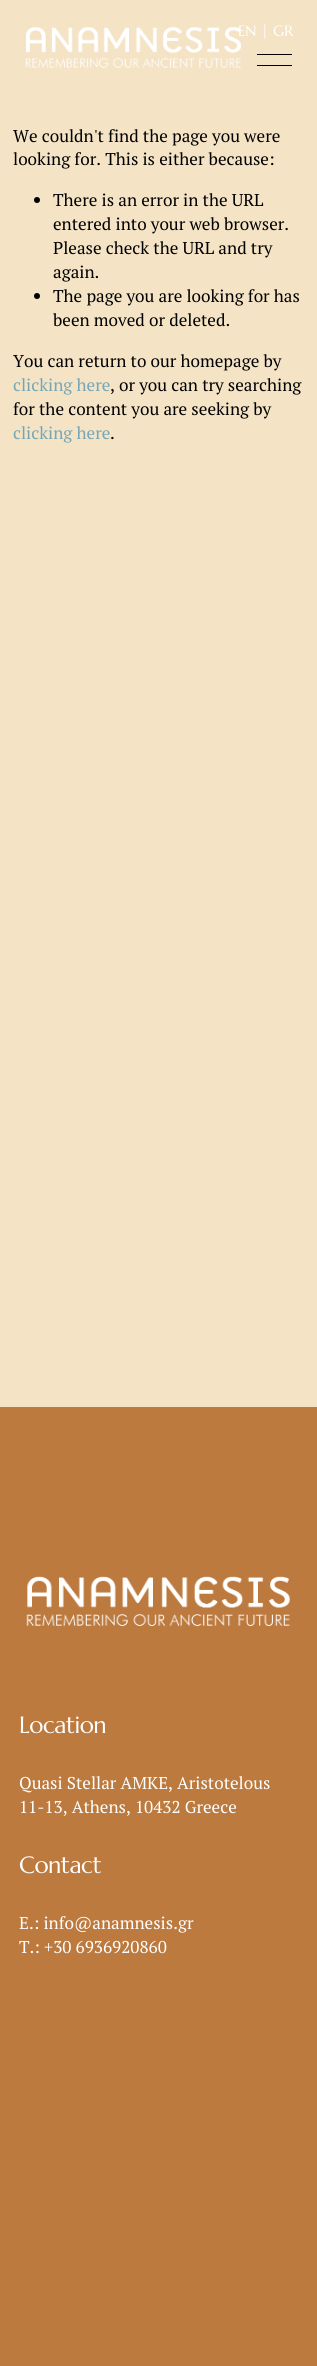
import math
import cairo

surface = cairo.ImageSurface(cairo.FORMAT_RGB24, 317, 2366)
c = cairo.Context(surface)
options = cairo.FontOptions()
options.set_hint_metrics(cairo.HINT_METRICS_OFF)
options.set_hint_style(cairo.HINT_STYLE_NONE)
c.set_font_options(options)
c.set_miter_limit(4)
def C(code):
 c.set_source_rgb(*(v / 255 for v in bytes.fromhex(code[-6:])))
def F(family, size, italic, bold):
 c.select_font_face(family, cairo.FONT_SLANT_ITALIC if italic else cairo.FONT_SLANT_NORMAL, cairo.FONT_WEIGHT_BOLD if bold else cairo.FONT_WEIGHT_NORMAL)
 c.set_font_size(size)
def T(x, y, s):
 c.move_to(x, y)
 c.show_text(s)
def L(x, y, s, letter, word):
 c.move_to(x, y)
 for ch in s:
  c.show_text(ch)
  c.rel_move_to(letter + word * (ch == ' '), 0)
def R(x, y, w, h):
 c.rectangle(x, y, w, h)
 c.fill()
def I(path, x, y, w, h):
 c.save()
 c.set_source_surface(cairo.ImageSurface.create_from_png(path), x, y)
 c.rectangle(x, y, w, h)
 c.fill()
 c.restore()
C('f4e3c5')
c.paint()
I('1.png',25,27,216,41)
F('Marcellus',15,0,0)
C('ffffff')
T(238,36,'EN')
T(261,35,'|')
T(273,36,'GR')
C('000000')
R(257,54,35,1)
R(257,65,35,1)
F('PT Serif',17.1,0,0)
T(13,142,'We couldn\'t find the page you were')
T(13,165,'looking for. This is either because:')
c.new_path()
c.arc(37,200,3,0,2 * math.pi)
c.fill()
T(53,206,'There is an error in the URL')
T(53,230,'entered into your web browser.')
T(53,254,'Please check the URL and try')
T(53,278,'again.')
c.new_path()
c.arc(37,296,3,0,2 * math.pi)
c.fill()
T(53,302,'The page you are looking for has')
T(53,326,'been moved or deleted.')
T(13,367,'You can return to our homepage by')
C('75a6b7')
T(13,391,'clicking here')
C('000000')
T(110,391,', or you can try searching')
T(13,415,'for the content you are seeking by')
C('75a6b7')
T(13,439,'clicking here')
C('000000')
T(110,439,'.')
C('bc7a3f')
R(0,1407,317,959)
I('2.png',26,1576,264,50)
F('Marcellus',23.5,0,0)
C('ffffff')
L(19,1733,'Location',-.5,0)
F('PT Serif',17.1,0,0)
T(19,1789,'Quasi Stellar AMKE, Aristotelous')
T(19,1813,'11-13, Athens, 10432 Greece')
F('Marcellus',23.5,0,0)
L(19,1873,'Contact',-.5,0)
F('PT Serif',17.1,0,0)
T(19,1929,'E.: info@anamnesis.gr')
T(19,1953,'T.: +30 6936920860')
surface.write_to_png('o.png')
